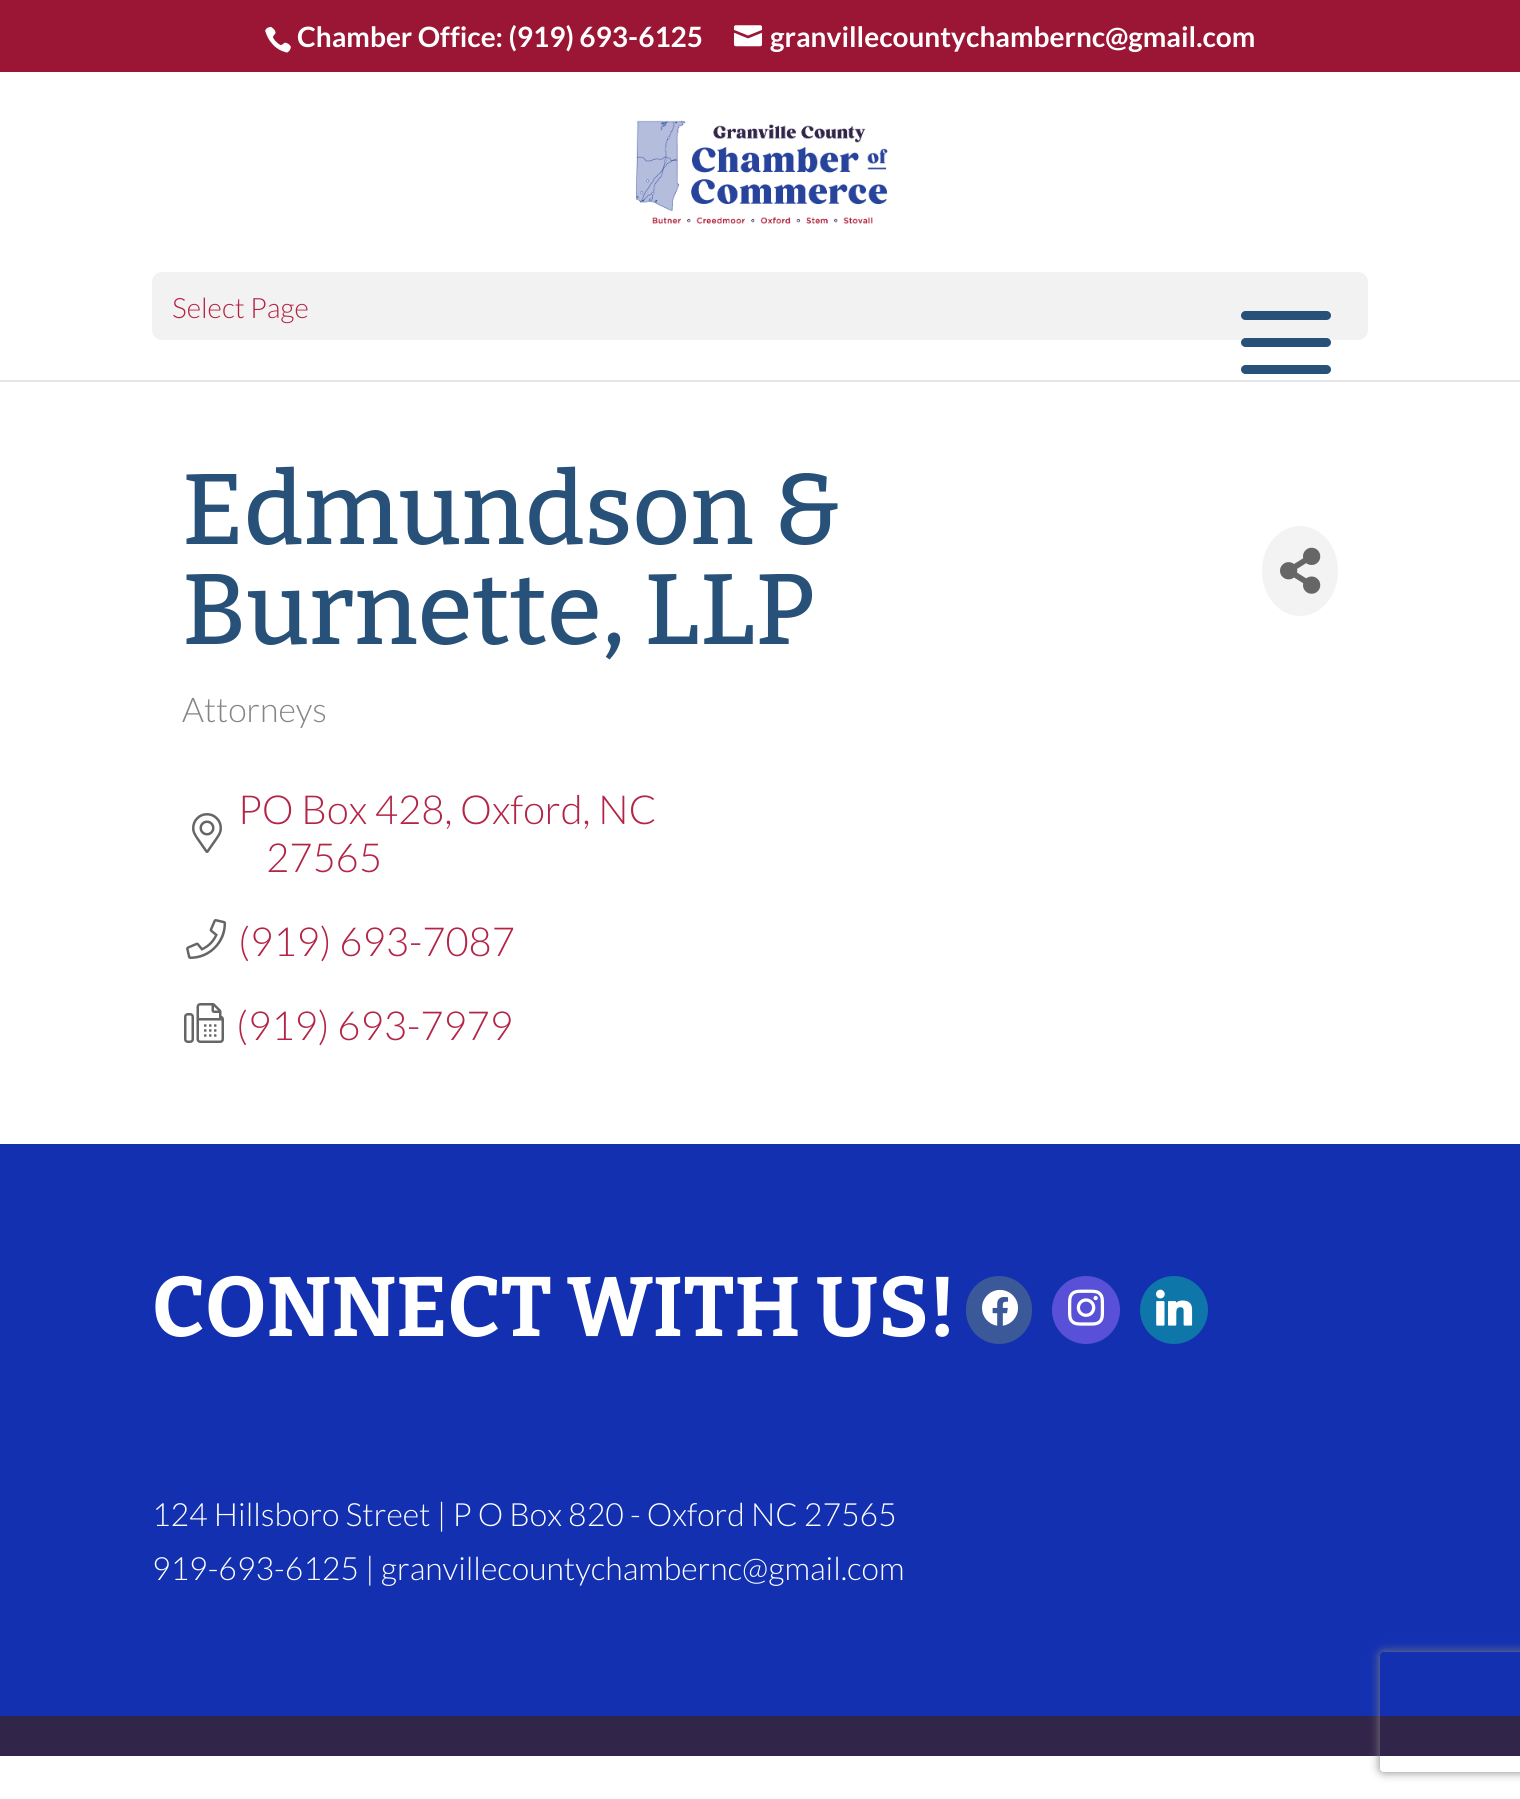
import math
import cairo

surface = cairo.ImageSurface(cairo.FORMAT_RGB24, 1520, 1799)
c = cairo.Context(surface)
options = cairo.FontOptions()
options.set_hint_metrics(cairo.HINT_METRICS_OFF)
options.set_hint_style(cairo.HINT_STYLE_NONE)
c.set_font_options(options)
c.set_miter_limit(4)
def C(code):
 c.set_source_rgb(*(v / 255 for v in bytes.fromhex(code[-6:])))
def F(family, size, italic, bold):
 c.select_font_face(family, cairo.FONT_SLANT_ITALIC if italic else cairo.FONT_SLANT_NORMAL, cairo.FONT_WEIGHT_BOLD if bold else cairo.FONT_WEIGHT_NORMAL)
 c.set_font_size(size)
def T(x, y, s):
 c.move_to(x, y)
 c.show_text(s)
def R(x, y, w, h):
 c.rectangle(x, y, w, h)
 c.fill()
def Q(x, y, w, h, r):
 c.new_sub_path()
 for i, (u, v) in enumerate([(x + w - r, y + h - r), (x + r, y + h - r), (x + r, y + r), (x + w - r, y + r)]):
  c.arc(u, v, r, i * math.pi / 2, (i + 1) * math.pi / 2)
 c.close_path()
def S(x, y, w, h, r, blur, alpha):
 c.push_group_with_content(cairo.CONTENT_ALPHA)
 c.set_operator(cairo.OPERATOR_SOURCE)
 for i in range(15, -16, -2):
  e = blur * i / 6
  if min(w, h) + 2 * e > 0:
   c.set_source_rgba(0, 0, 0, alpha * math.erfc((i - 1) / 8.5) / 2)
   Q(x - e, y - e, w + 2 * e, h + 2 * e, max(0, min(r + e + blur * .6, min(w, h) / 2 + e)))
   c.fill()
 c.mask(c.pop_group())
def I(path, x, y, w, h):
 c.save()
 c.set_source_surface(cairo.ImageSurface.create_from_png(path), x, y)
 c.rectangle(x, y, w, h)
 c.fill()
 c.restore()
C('ffffff')
c.paint()
C('9b1534')
R(0,0,1520,72)
I('1.png',265,26,26,27)
F('Lato',28,0,1)
C('ffffff')
T(297,47,'Chamber Office: (919) 693-6125')
I('2.png',734,25,28,22)
T(770,47,'granvillecountychambernc@gmail.com')
C('e6e6e6')
R(0,380,1520,2)
I('3.png',636,120,252,104)
C('f2f2f2')
Q(152,272,1216,68,10)
c.fill()
F('Lato Light',28,0,0)
C('b32446')
T(172,318,'Select Page')
I('4.png',1241,311,90,63)
F('Bitter Medium',100,0,0)
C('275179')
T(182,544,'Edmundson &')
T(182,644,'Burnette, LLP')
C('f3f3f3')
c.new_path()
c.move_to(1300,526)
c.curve_to(1321,526,1338,546,1338,571)
c.curve_to(1338,596,1321,616,1300,616)
c.curve_to(1279,616,1262,596,1262,571)
c.curve_to(1262,546,1279,526,1300,526)
c.close_path()
c.fill()
I('5.png',1280,547,41,47)
F('Lato Light',34,0,0)
C('858585')
T(182,722,'Attorneys')
I('6.png',192,813,30,40)
F('Lato Light',40,0,0)
C('b32446')
T(238,824,'PO Box 428, Oxford, NC')
T(266,872,'27565')
I('7.png',186,919,41,40)
T(238,956,'(919) 693-7087')
I('8.png',184,1003,40,40)
T(236,1040,'(919) 693-7979')
C('1230b0')
R(0,1144,1520,572)
F('Bitter',84,0,1)
C('ffffff')
T(152,1336,'CONNECT WITH US!')
C('3b5998')
Q(966,1276,66,68,33)
c.fill()
I('9.png',982,1289,36,37)
C('5851d8')
c.arc(1086,1310,34,0,2 * math.pi)
c.fill()
I('10.png',1068,1289,37,37)
C('0e76a8')
c.arc(1174,1310,34,0,2 * math.pi)
c.fill()
I('11.png',1156,1289,37,37)
F('Lato Light',32,0,0)
C('ffffff')
T(152,1526,'124 Hillsboro Street | P O Box 820 - Oxford NC 27565')
T(152,1580,'919-693-6125 | granvillecountychambernc@gmail.com')
C('32254a')
R(0,1716,1520,40)
c.save()
c.set_fill_rule(cairo.FILL_RULE_EVEN_ODD)
c.new_path()
c.move_to(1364,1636)
c.line_to(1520,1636)
c.line_to(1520,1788)
c.line_to(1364,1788)
c.close_path()
c.move_to(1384,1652)
c.line_to(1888,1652)
c.curve_to(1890,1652,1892,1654,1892,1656)
c.line_to(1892,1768)
c.curve_to(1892,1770,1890,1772,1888,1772)
c.line_to(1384,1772)
c.curve_to(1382,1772,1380,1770,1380,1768)
c.line_to(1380,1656)
c.curve_to(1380,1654,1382,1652,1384,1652)
c.close_path()
c.clip()
C('808080')
S(1380,1652,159,120,4,5,1)
c.restore()
surface.write_to_png('o.png')
